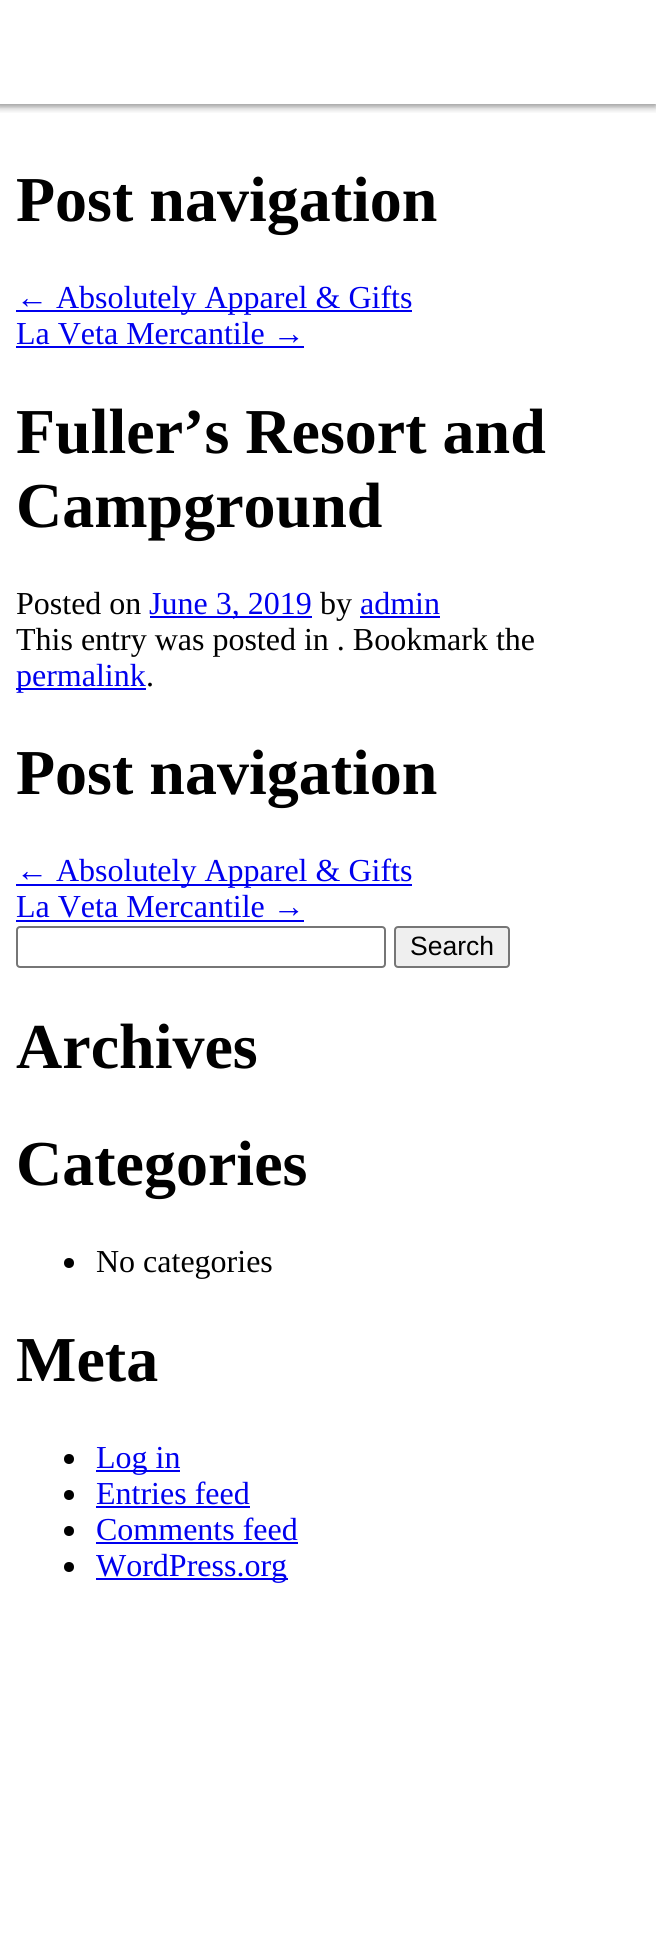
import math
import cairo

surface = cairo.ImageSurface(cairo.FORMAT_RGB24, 656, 1953)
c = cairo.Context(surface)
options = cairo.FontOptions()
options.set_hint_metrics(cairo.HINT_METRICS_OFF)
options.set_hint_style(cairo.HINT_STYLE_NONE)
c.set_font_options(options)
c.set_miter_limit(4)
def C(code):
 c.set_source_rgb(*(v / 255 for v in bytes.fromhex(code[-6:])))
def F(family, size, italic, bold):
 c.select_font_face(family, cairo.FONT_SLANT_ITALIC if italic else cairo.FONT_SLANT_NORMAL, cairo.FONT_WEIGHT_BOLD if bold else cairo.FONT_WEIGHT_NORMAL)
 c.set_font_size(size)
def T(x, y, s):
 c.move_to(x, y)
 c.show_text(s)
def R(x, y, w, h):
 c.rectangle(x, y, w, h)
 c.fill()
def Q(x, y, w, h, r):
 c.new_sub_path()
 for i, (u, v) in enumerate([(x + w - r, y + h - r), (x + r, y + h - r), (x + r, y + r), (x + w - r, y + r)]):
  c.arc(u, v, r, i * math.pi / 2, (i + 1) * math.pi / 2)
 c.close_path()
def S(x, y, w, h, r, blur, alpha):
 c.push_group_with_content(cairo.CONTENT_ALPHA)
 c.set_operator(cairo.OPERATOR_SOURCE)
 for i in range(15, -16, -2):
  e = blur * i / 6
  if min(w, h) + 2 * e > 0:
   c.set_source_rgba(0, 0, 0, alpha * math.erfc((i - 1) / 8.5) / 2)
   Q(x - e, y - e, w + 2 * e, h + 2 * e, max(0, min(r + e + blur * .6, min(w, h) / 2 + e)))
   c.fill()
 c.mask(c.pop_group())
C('ffffff')
c.paint()
c.save()
c.rectangle(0,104,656,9)
c.clip()
C('000000')
S(-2,2,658,104,0,4,.5)
c.restore()
F('Liberation Serif',64,0,1)
C('000000')
T(16,221,'Post navigation')
C('0000ee')
R(16,310,396,2)
F('Liberation Serif',32,0,0)
T(16,308,'← Absolutely Apparel & Gifts')
T(16,344,'La Veta Mercantile →')
R(16,346,288,2)
F('Liberation Serif',64,0,1)
C('000000')
T(16,453,'Fuller’s Resort and')
T(16,527,'Campground')
F('Liberation Serif',32,0,0)
T(16,614,'Posted on')
C('0000ee')
R(150,616,162,2)
T(149,614,'June 3, 2019')
C('000000')
T(320,614,'by')
C('0000ee')
T(360,614,'admin')
R(360,616,80,2)
C('000000')
T(16,650,'This entry was posted in . Bookmark the')
C('0000ee')
R(16,688,130,2)
T(16,686,'permalink')
C('000000')
T(146,686,'.')
F('Liberation Serif',64,0,1)
T(16,794,'Post navigation')
C('0000ee')
R(16,884,396,2)
F('Liberation Serif',32,0,0)
T(16,881,'← Absolutely Apparel & Gifts')
T(16,917,'La Veta Mercantile →')
R(16,920,288,2)
Q(17,927,368,40,3)
C('767676')
c.stroke()
C('efefef')
Q(395,927,114,40,3)
c.fill_preserve()
C('767676')
c.stroke()
F('Liberation Sans',26.5,0,0)
C('000000')
T(410,955,'Search')
F('Liberation Serif',64,0,1)
T(16,1068,'Archives')
T(16,1185,'Categories')
c.new_path()
c.arc(69,1263,5,0,2 * math.pi)
c.fill()
F('Liberation Serif',32,0,0)
T(96,1272,'No categories')
F('Liberation Serif',64,0,1)
T(16,1381,'Meta')
c.new_path()
c.arc(69,1459,5,0,2 * math.pi)
c.fill()
C('0000ee')
R(96,1470,84,2)
F('Liberation Serif',32,0,0)
T(96,1468,'Log in')
C('000000')
c.new_path()
c.arc(69,1495,5,0,2 * math.pi)
c.fill()
C('0000ee')
T(96,1504,'Entries feed')
R(96,1506,154,2)
C('000000')
c.new_path()
c.arc(69,1531,5,0,2 * math.pi)
c.fill()
C('0000ee')
T(96,1540,'Comments feed')
R(96,1542,202,2)
C('000000')
c.new_path()
c.arc(69,1567,5,0,2 * math.pi)
c.fill()
C('0000ee')
R(96,1578,192,2)
T(96,1576,'WordPress.org')
surface.write_to_png('o.png')
